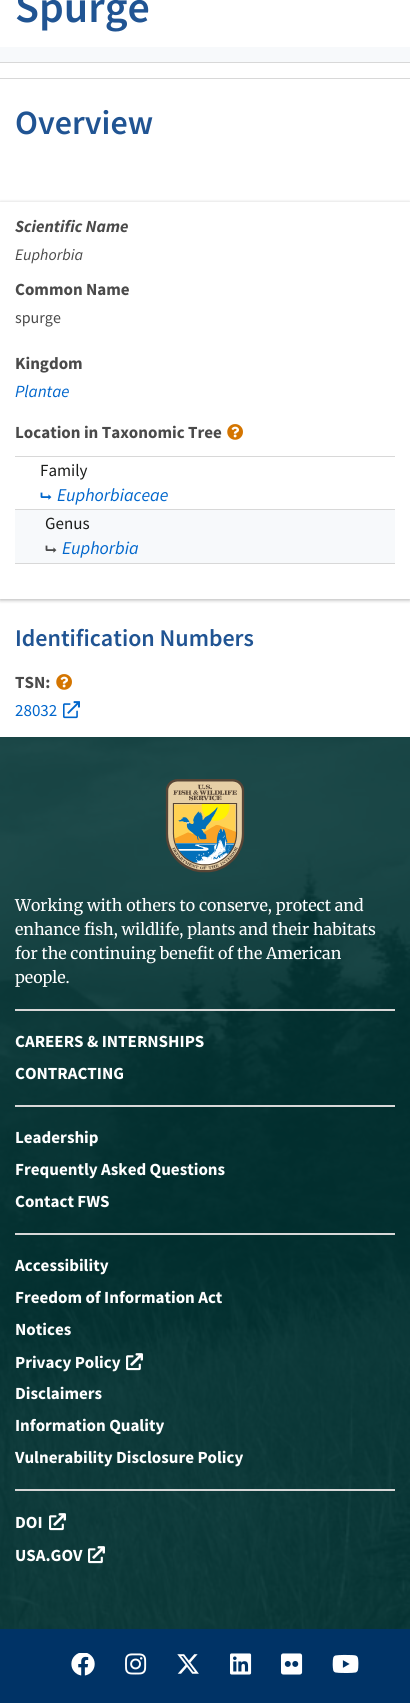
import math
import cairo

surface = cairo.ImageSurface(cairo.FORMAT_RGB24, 410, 1703)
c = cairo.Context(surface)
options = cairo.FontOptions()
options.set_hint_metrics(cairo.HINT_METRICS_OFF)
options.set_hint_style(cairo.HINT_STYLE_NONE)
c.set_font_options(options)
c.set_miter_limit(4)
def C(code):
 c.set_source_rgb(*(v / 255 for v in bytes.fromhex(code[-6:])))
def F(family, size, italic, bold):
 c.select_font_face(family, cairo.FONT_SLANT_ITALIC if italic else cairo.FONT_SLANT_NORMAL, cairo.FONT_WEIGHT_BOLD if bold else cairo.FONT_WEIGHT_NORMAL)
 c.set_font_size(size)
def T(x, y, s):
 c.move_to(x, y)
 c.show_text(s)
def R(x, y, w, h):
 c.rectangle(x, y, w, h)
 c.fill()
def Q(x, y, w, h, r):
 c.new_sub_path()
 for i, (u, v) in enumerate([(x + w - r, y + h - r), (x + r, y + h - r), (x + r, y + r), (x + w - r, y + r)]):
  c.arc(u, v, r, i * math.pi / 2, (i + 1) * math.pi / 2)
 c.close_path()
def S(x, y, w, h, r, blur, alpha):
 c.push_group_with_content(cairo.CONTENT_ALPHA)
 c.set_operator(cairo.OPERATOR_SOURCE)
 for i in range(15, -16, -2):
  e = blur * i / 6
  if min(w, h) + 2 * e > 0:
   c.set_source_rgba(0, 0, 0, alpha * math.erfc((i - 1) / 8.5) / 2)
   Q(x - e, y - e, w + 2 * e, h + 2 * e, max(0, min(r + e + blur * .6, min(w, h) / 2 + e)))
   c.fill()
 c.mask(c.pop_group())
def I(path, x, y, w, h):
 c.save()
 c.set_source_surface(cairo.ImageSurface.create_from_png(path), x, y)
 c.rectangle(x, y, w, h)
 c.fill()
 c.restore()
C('ffffff')
c.paint()
F('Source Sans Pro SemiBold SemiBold',44,0,0)
C('205493')
T(15,22,'Spurge')
C('f7f9fb')
R(0,47,410,15)
C('d8d8d8')
R(0,62,410,1)
R(0,78,410,1)
F('Source Sans Pro SemiBold SemiBold',34,0,0)
C('205493')
T(15,134,'Overview')
c.save()
c.set_fill_rule(cairo.FILL_RULE_EVEN_ODD)
c.new_path()
c.move_to(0,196)
c.line_to(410,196)
c.line_to(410,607)
c.line_to(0,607)
c.close_path()
c.move_to(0,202)
c.line_to(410,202)
c.line_to(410,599)
c.line_to(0,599)
c.close_path()
c.clip()
C('000000')
S(0,203,410,397,0,2,.3)
c.restore()
F('Source Sans Pro',17,1,1)
C('4a4a4a')
T(15,232,'Scientific Name')
F('Source Sans Pro',16,1,0)
T(15,260,'Euphorbia')
F('Source Sans Pro',17,0,1)
T(15,295,'Common Name')
F('Source Sans Pro',16,0,0)
T(15,323,'spurge')
F('Source Sans Pro',17,0,1)
T(15,369,'Kingdom')
F('Source Sans Pro',17,1,0)
C('0066cc')
T(15,397,'Plantae')
F('Source Sans Pro',17,0,1)
C('4a4a4a')
T(15,438,'Location in Taxonomic Tree')
I('1.png',227,424,16,16)
C('d8d8d8')
R(15,456,380,1)
F('Source Sans Pro',17,0,0)
C('1b1c1a')
T(40,476,'Family')
I('2.png',40,492,12,8)
F('Source Sans Pro',18,1,0)
C('0066cc')
T(57,501,'Euphorbiaceae')
C('f7f9fb')
R(15,510,380,53)
C('d8d8d8')
R(15,509,380,1)
R(15,563,380,1)
F('Source Sans Pro',17,0,0)
C('1b1c1a')
T(45,529,'Genus')
I('3.png',45,545,12,8)
F('Source Sans Pro',18,1,0)
C('0066cc')
T(62,554,'Euphorbia')
F('Source Sans Pro SemiBold SemiBold',24,0,0)
C('205493')
T(15,646,'Identification Numbers')
F('Source Sans Pro',17,0,1)
C('4a4a4a')
T(15,688,'TSN:')
I('1.png',56,674,16,16)
F('Source Sans Pro',17,0,0)
C('0066cc')
T(15,716,'28032')
I('4.png',63,701,17,18)
I('5.png',0,737,410,892)
I('6.png',165,779,80,94)
F('Merriweather',16,0,0)
C('ffffff')
T(15,911,'Working with others to conserve, protect and')
T(15,935,'enhance fish, wildlife, plants and their habitats')
T(15,959,'for the continuing benefit of the American')
T(15,983,'people.')
C('d8d8d8')
R(15,1009,380,2)
F('Source Sans Pro',17,0,1)
C('ffffff')
T(15,1047,'CAREERS & INTERNSHIPS')
T(15,1079,'CONTRACTING')
C('d8d8d8')
R(15,1105,380,2)
C('ffffff')
T(15,1143,'Leadership')
T(15,1175,'Frequently Asked Questions')
T(15,1207,'Contact FWS')
C('d8d8d8')
R(15,1233,380,2)
C('ffffff')
T(15,1271,'Accessibility')
T(15,1303,'Freedom of Information Act')
T(15,1335,'Notices')
T(15,1368,'Privacy Policy')
I('7.png',126,1353,17,18)
T(15,1399,'Disclaimers')
T(15,1431,'Information Quality')
T(15,1463,'Vulnerability Disclosure Policy')
C('d8d8d8')
R(15,1489,380,2)
C('ffffff')
T(15,1528,'DOI')
I('8.png',49,1513,17,18)
T(15,1561,'USA.GOV')
I('9.png',88,1546,17,18)
C('003366')
R(0,1629,410,74)
I('10.png',71,1653,24,23)
I('11.png',125,1653,22,22)
I('12.png',177,1654,22,20)
I('13.png',230,1653,22,22)
I('14.png',281,1653,22,22)
I('15.png',332,1654,27,19)
surface.write_to_png('o.png')
